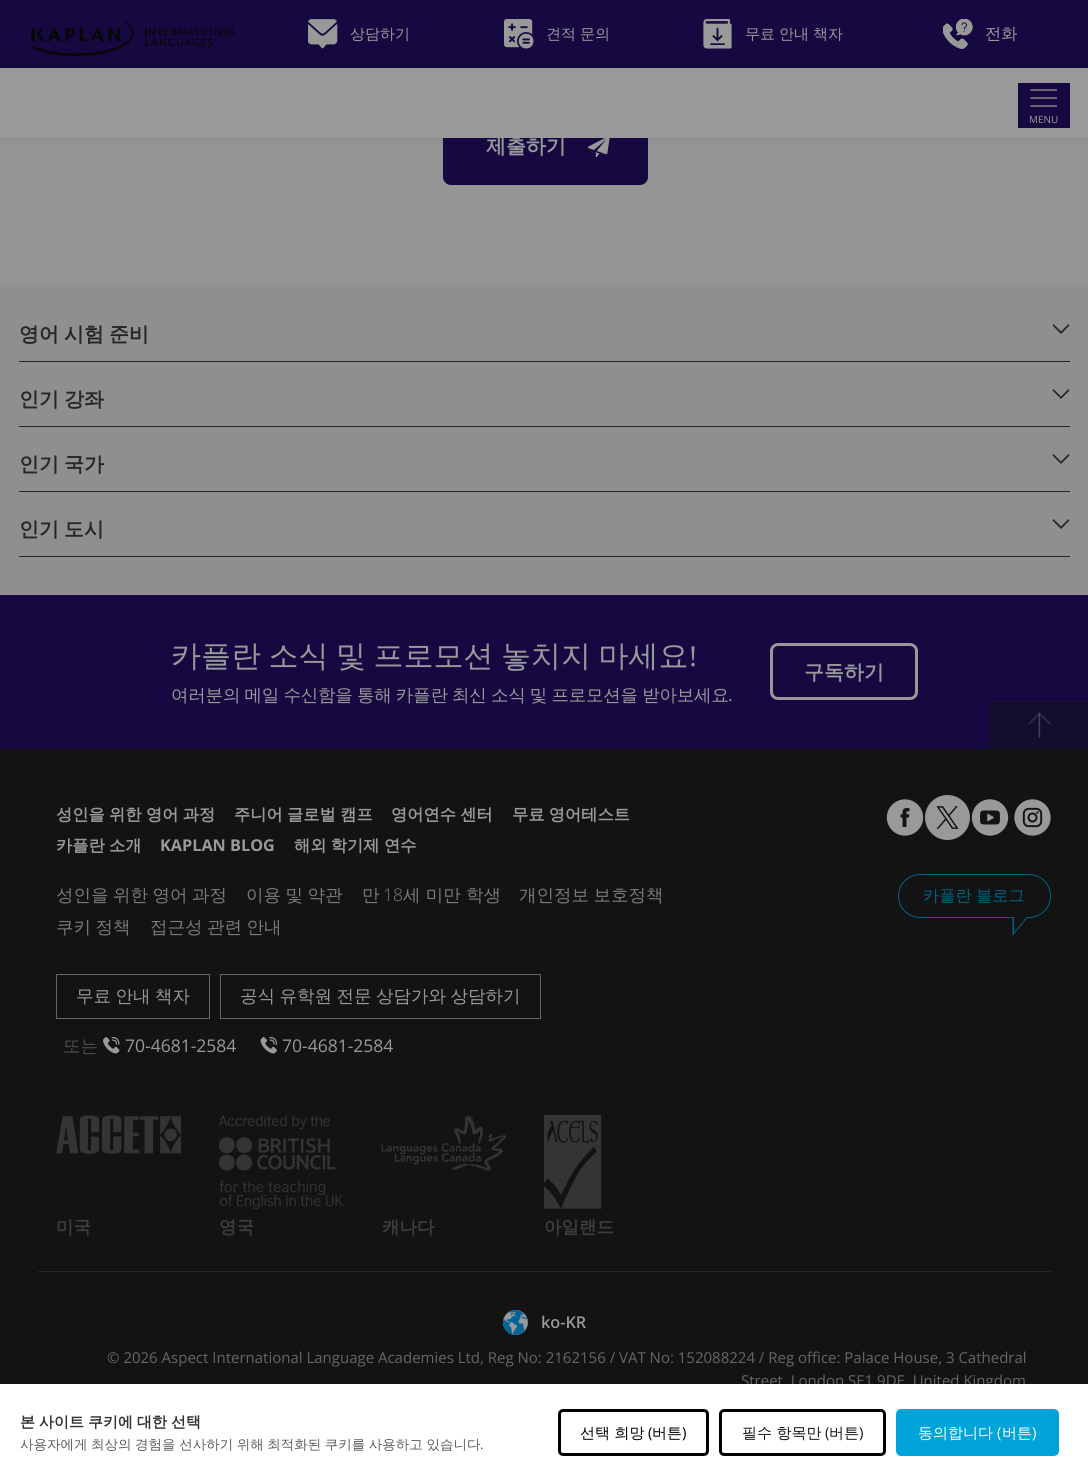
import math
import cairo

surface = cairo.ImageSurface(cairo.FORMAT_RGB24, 1088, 1481)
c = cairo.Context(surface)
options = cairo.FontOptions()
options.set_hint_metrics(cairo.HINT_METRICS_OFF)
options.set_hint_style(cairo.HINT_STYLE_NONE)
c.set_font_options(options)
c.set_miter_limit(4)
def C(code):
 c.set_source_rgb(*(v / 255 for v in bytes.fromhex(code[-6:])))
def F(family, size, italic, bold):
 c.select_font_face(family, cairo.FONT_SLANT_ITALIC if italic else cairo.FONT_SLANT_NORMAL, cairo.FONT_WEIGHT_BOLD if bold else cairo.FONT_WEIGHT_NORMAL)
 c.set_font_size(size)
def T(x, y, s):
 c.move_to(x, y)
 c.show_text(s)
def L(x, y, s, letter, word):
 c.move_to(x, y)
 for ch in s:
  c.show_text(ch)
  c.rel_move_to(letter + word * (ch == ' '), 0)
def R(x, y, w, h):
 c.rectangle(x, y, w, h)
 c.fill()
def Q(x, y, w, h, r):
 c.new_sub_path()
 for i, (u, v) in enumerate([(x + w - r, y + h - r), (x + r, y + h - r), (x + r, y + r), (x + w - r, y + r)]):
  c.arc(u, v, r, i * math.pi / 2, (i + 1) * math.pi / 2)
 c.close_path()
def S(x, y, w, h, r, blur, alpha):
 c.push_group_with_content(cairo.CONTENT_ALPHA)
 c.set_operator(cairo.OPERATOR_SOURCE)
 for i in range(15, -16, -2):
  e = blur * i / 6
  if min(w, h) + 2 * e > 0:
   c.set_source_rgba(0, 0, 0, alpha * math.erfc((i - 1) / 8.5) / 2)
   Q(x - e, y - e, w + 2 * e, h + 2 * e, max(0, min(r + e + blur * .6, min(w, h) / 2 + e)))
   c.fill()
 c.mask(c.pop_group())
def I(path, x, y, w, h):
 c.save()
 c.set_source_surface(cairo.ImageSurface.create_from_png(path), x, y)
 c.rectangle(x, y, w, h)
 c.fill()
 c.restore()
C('959595')
c.paint()
C('160942')
R(0,0,1088,68)
Q(443,110,205,75,8)
c.fill()
I('7.png',588,138,22,19)
C('000000')
S(0,69,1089,70,0,5,.08)
I('1.png',31,21,205,35)
I('2.png',308,19,30,30)
F('WenQuanYi Zen Hei Medium',15,0,0)
C('999999')
T(350,39,'상담하기')
I('3.png',504,19,30,30)
L(546,39,'견적 문의',0,-.5)
I('4.png',703,19,29,30)
L(745,39,'무료 안내 책자',0,-.5)
I('5.png',943,19,30,30)
I('6.png',943,19,30,30)
F('WenQuanYi Zen Hei Medium',16.25,0,0)
T(985,39,'전화')
R(0,68,1088,70)
C('160942')
R(1018,83,52,45)
c.new_path()
c.move_to(1030.5,90)
c.line_to(1057,90)
c.move_to(1030.5,98)
c.line_to(1057,98)
c.move_to(1030.5,106)
c.line_to(1057,106)
C('999999')
c.set_line_width(1.3)
c.stroke()
F('Open Sans',10,0,0)
T(1029,123,'MENU')
F('WenQuanYi Zen Hei',20,0,1)
T(486,153,'제출하기')
C('8f8f8f')
R(0,285,1088,310)
C('262626')
R(19,361,1051,1)
L(19,341,'영어 시험 준비',0,-1)
c.new_path()
c.move_to(1068.5,324)
c.line_to(1069.5,325.5)
c.line_to(1061,334)
c.line_to(1052.5,325.5)
c.line_to(1053.5,324)
c.line_to(1061,331.5)
c.close_path()
c.fill()
R(19,426,1051,1)
L(19,406,'인기 강좌',0,-1)
c.new_path()
c.move_to(1068.5,389)
c.line_to(1069.5,390.5)
c.line_to(1061,399)
c.line_to(1052.5,390.5)
c.line_to(1053.5,389)
c.line_to(1061,396.5)
c.close_path()
c.fill()
R(19,491,1051,1)
L(19,471,'인기 국가',0,-1)
c.new_path()
c.move_to(1068.5,454)
c.line_to(1069.5,455.5)
c.line_to(1061,464)
c.line_to(1052.5,455.5)
c.line_to(1053.5,454)
c.line_to(1061,461.5)
c.close_path()
c.fill()
R(19,556,1051,1)
L(19,536,'인기 도시',0,-1)
c.new_path()
c.move_to(1068.5,519)
c.line_to(1069.5,520.5)
c.line_to(1061,529)
c.line_to(1052.5,520.5)
c.line_to(1053.5,519)
c.line_to(1061,526.5)
c.close_path()
c.fill()
C('160942')
R(0,595,1088,154)
F('WenQuanYi Zen Hei Medium',30,0,0)
C('999999')
L(171,666,'카플란 소식 및 프로모션 놓치지 마세요',0,-1.5)
F('Liberation Serif',30,0,0)
T(688,666,'!')
F('WenQuanYi Zen Hei Medium',17.5,0,0)
L(171,701,'여러분의 메일 수신함을 통해 카플란 최신 소식 및 프로모션을 받아보세요',-.2,-.75)
F('Open Sans',17.5,0,0)
L(728,701,'.',-.2,0)
Q(771.5,644.5,145,54,6.5)
c.set_line_width(3)
c.stroke()
F('WenQuanYi Zen Hei',20,0,1)
T(804,679,'구독하기')
C('131313')
R(0,749,1088,635)
C('262626')
R(38,1271,1013,1)
F('WenQuanYi Zen Hei',16.25,0,1)
C('999999')
L(56,820,'성인을 위한 영어 과정',0,-.5)
L(234,820,'주니어 글로벌 캠프',0,-.5)
L(391,820,'영어연수 센터',0,-.5)
L(512,820,'무료 영어테스트',0,-.5)
L(56,851,'카플란 소개',0,-.5)
F('Open Sans',16.25,0,1)
T(160,851,'KAPLAN BLOG')
F('WenQuanYi Zen Hei',16.25,0,1)
L(294,851,'해외 학기제 연수',0,-.5)
F('WenQuanYi Zen Hei Medium',17.5,0,0)
C('7a7a7a')
L(56,901,'성인을 위한 영어 과정',0,-.75)
L(246,901,'이용 및 약관',0,-.75)
T(362,901,'만')
F('Open Sans Light',17.5,0,0)
T(383,901,'18')
F('WenQuanYi Zen Hei Medium',17.5,0,0)
T(403,901,'세 미만 학생')
L(519,901,'개인정보 보호정책',0,-.75)
L(56,933,'쿠키 정책',0,-.75)
L(150,933,'접근성 관련 안내',0,-.75)
I('8.png',886,799,38,37)
I('9.png',925,795,45,45)
I('10.png',971,799,38,37)
I('11.png',1014,799,37,37)
Q(898.5,874.5,152,43,21.5)
C('006282')
c.set_line_width(1)
c.stroke()
F('WenQuanYi Zen Hei Medium',16.25,0,0)
L(923,901,'카플란 블로그',0,-.5)
c.new_path()
c.move_to(1012.5,917.5)
c.line_to(1027.5,917.5)
c.line_to(1012.5,936)
c.close_path()
c.fill()
C('131313')
c.new_path()
c.move_to(1014,914)
c.line_to(1029,914)
c.line_to(1014,932.5)
c.close_path()
c.fill()
c.rectangle(56.5,974.5,153,44)
C('666666')
c.stroke()
F('WenQuanYi Zen Hei Medium',17.5,0,0)
C('999999')
L(76,1002,'무료 안내 책자',0,-.75)
c.rectangle(220.5,974.5,320,44)
C('666666')
c.stroke()
C('999999')
L(240,1002,'공식 유학원 전문 상담가와 상담하기',0,-.75)
C('4d4d4d')
T(63,1052,'또는')
I('12.png',103,1037,17,17)
F('Open Sans',17.5,0,0)
C('999999')
T(125,1052,'70-4681-2584')
I('13.png',260,1037,17,17)
T(282,1052,'70-4681-2584')
I('14.png',56,1115,125,39)
F('WenQuanYi Zen Hei',17.5,0,1)
C('3d3d3d')
T(56,1233,'미국')
I('15.png',219,1115,124,94)
T(219,1233,'영국')
I('16.png',381,1115,125,56)
T(382,1233,'캐나다')
I('17.png',544,1115,58,94)
T(544,1233,'아일랜드')
C('999999')
c.new_path()
c.arc(515.5,1322.5,12.5,0,2 * math.pi)
c.fill()
I('18.png',503,1310,25,25)
F('Open Sans SemiBold',16.25,0,0)
T(541,1328,'ko-KR')
C('140d2f')
R(989,701,99,48)
I('19.png',1028,712,22,26)
C('1a1335')
c.new_path()
c.move_to(989,701)
c.line_to(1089,701)
c.line_to(1088,702)
c.line_to(990,702)
c.close_path()
c.fill()
c.set_source_rgba(0.29,0.263,0.396,0.1)
c.new_path()
c.move_to(989,749)
c.line_to(989,701)
c.line_to(990,702)
c.line_to(990,749)
c.close_path()
c.fill()
F('Open Sans',15,0,0)
C('666666')
T(107,1363,'© 2026 Aspect International Language Academies Ltd, Reg No: 2162156 / VAT No: 152088224 / Reg office: Palace House, 3 Cathedral')
T(741,1386,'Street, London SE1 9DE, United Kingdom')
C('ffffff')
R(0,1384,1088,97)
F('WenQuanYi Zen Hei',15,0,1)
C('333333')
L(20,1427,'본 사이트 쿠키에 대한 선택',0,-.5)
F('WenQuanYi Zen Hei Medium',13.5,0,0)
C('5c5c5c')
L(20,1449,'사용자에게 최상의 경험을 선사하기 위해 최적화된 쿠키를 사용하고 있습니다',0,-.5)
F('Open Sans',13.5,0,0)
T(480,1449,'.')
Q(559.5,1410.5,148,44,3.5)
C('000000')
c.set_line_width(3)
c.stroke()
F('WenQuanYi Zen Hei Medium',15,0,0)
T(580,1438,'선택 희망')
F('Open Sans',15,0,0)
T(648,1438,'(')
F('WenQuanYi Zen Hei Medium',15,0,0)
T(652,1438,'버튼')
F('Open Sans',15,0,0)
T(682,1438,')')
Q(720.5,1410.5,164,44,3.5)
c.stroke()
F('WenQuanYi Zen Hei Medium',15,0,0)
C('141414')
T(742,1438,'필수 항목만')
F('Open Sans',15,0,0)
T(825,1438,'(')
F('WenQuanYi Zen Hei Medium',15,0,0)
T(829,1438,'버튼')
F('Open Sans',15,0,0)
T(859,1438,')')
C('00a4d9')
Q(897.5,1410.5,160,44,3.5)
c.fill_preserve()
c.stroke()
F('WenQuanYi Zen Hei Medium',15,0,0)
C('ffffff')
T(918,1438,'동의합니다')
F('Open Sans',15,0,0)
T(997,1438,'(')
F('WenQuanYi Zen Hei Medium',15,0,0)
T(1002,1438,'버튼')
F('Open Sans',15,0,0)
T(1032,1438,')')
surface.write_to_png('o.png')
